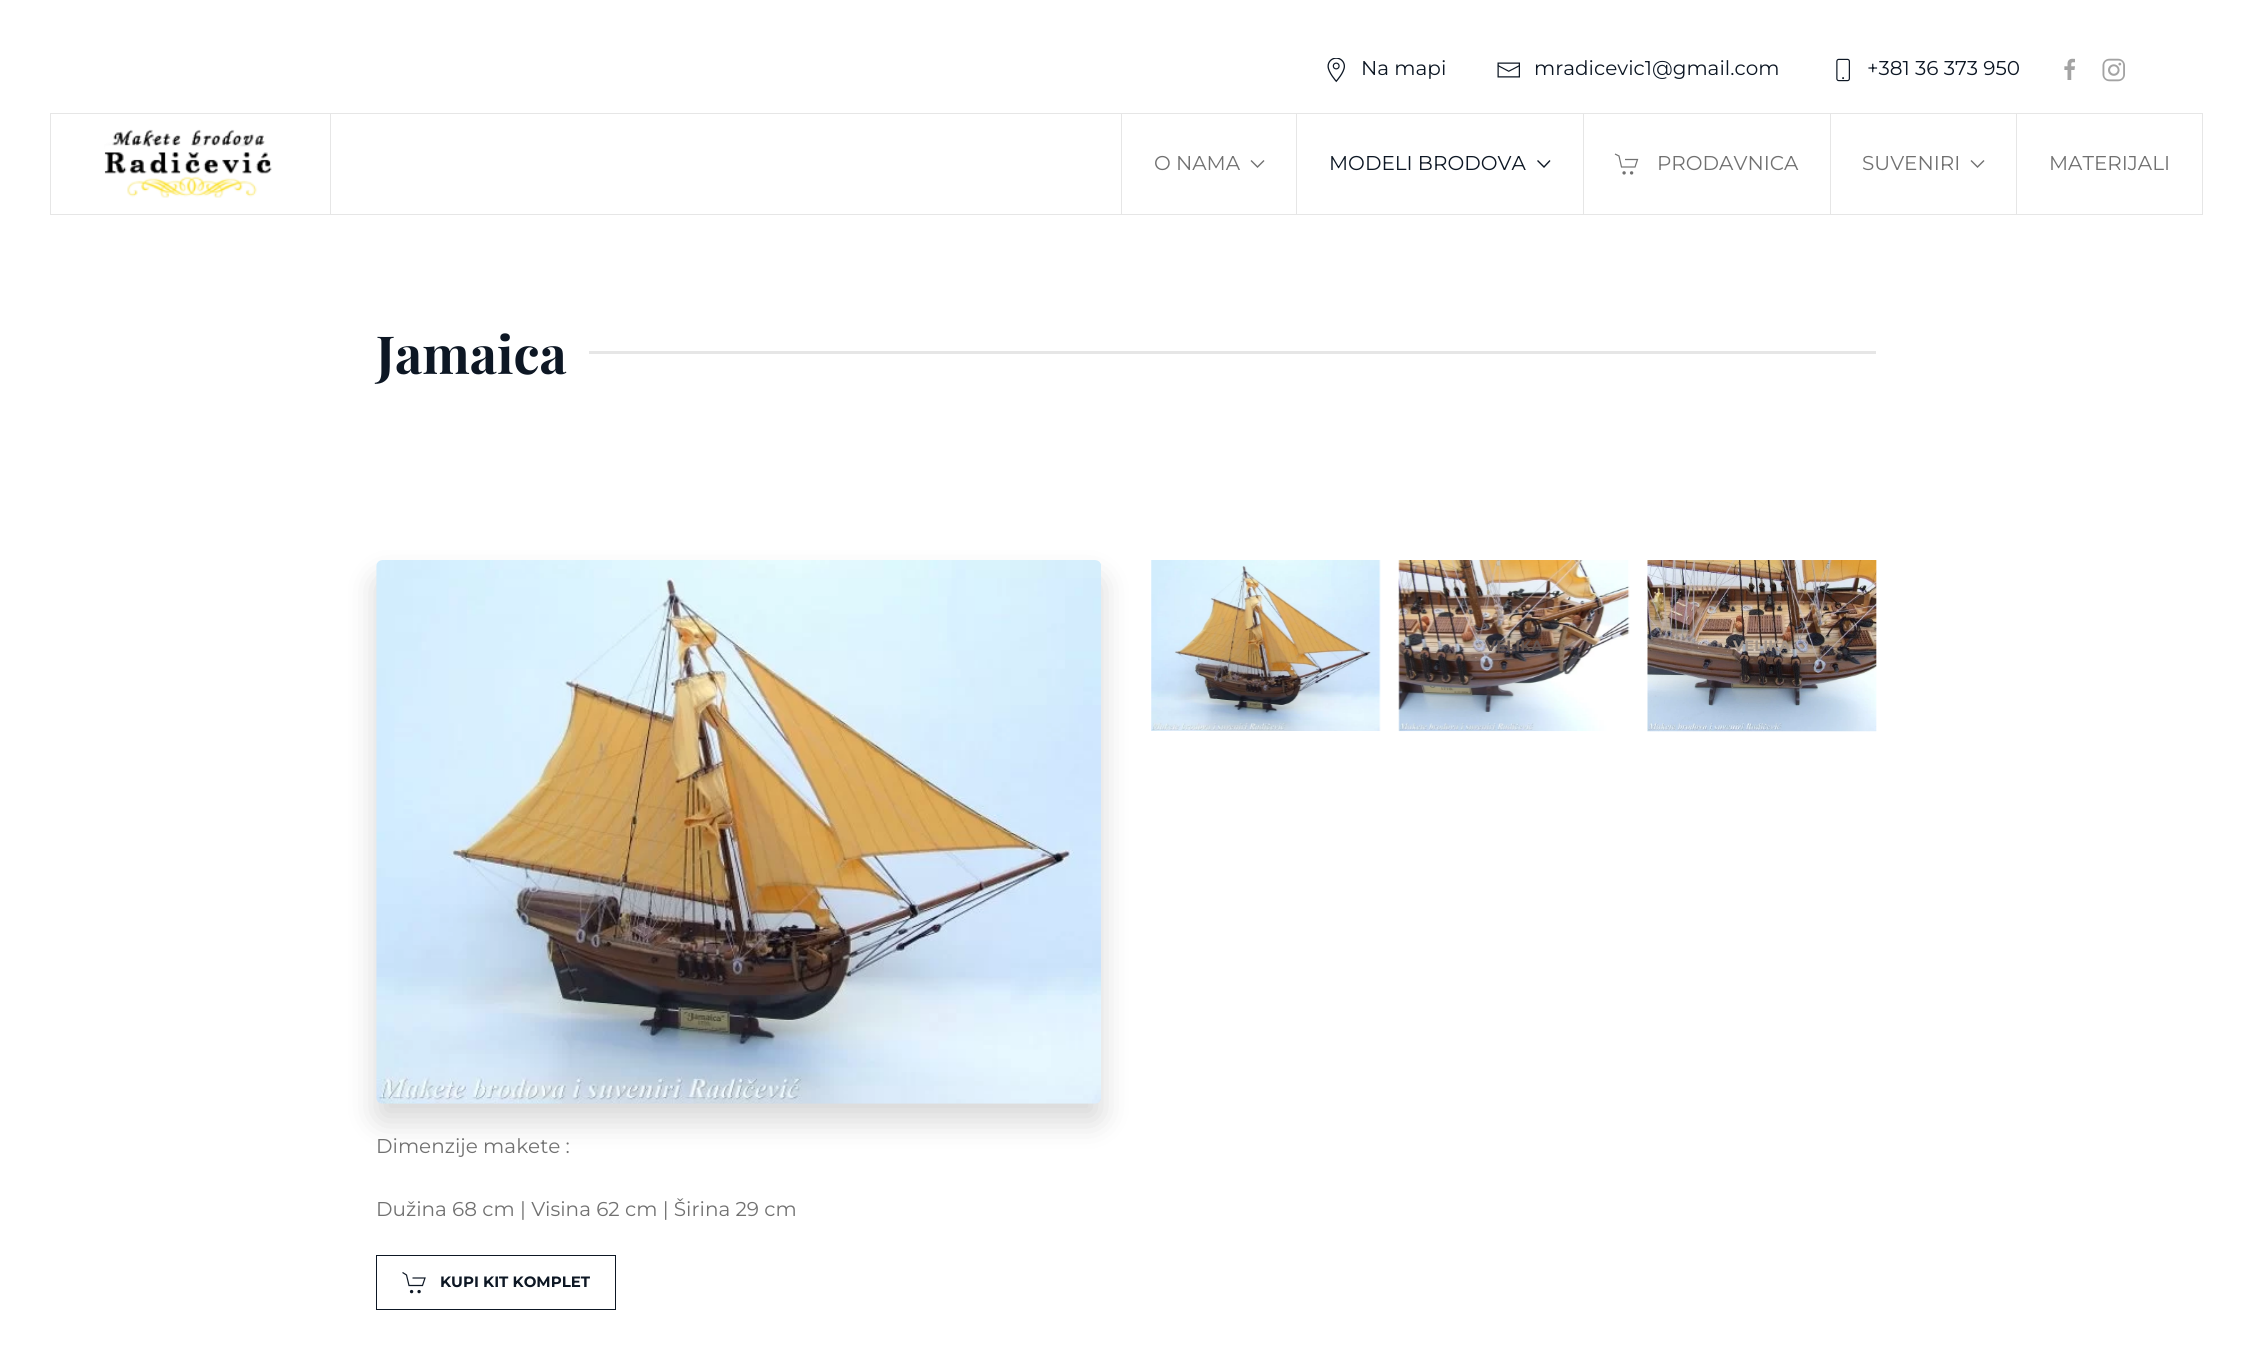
import math
import cairo

surface = cairo.ImageSurface(cairo.FORMAT_RGB24, 2252, 1371)
c = cairo.Context(surface)
options = cairo.FontOptions()
options.set_hint_metrics(cairo.HINT_METRICS_OFF)
options.set_hint_style(cairo.HINT_STYLE_NONE)
c.set_font_options(options)
c.set_miter_limit(4)
def C(code):
 c.set_source_rgb(*(v / 255 for v in bytes.fromhex(code[-6:])))
def F(family, size, italic, bold):
 c.select_font_face(family, cairo.FONT_SLANT_ITALIC if italic else cairo.FONT_SLANT_NORMAL, cairo.FONT_WEIGHT_BOLD if bold else cairo.FONT_WEIGHT_NORMAL)
 c.set_font_size(size)
def T(x, y, s):
 c.move_to(x, y)
 c.show_text(s)
def R(x, y, w, h):
 c.rectangle(x, y, w, h)
 c.fill()
def Q(x, y, w, h, r):
 c.new_sub_path()
 for i, (u, v) in enumerate([(x + w - r, y + h - r), (x + r, y + h - r), (x + r, y + r), (x + w - r, y + r)]):
  c.arc(u, v, r, i * math.pi / 2, (i + 1) * math.pi / 2)
 c.close_path()
def S(x, y, w, h, r, blur, alpha):
 c.push_group_with_content(cairo.CONTENT_ALPHA)
 c.set_operator(cairo.OPERATOR_SOURCE)
 for i in range(15, -16, -2):
  e = blur * i / 6
  if min(w, h) + 2 * e > 0:
   c.set_source_rgba(0, 0, 0, alpha * math.erfc((i - 1) / 8.5) / 2)
   Q(x - e, y - e, w + 2 * e, h + 2 * e, max(0, min(r + e + blur * .6, min(w, h) / 2 + e)))
   c.fill()
 c.mask(c.pop_group())
def I(path, x, y, w, h):
 c.save()
 c.set_source_surface(cairo.ImageSurface.create_from_png(path), x, y)
 c.rectangle(x, y, w, h)
 c.fill()
 c.restore()
C('ffffff')
c.paint()
I('1.png',1327,58,18,25)
F('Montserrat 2 Thin',20,0,0)
C('0d1724')
T(1361,75,'Na mapi')
I('2.png',1497,62,23,16)
T(1534,75,'mradicevic1@gmail.com')
I('3.png',1836,58,14,24)
T(1867,75,'+381 36 373 950')
I('4.png',2064,58,11,22)
I('5.png',2102,58,23,24)
c.rectangle(50.5,113.5,2152,101)
C('e6e6e6')
c.set_line_width(1)
c.stroke()
R(330,114,1,100)
I('6.png',104,129,168,69)
R(1121,114,1,100)
R(1296,114,1,100)
C('717171')
T(1154,170,'O NAMA')
c.new_path()
c.move_to(1251,160.5)
c.line_to(1257.5,167)
c.line_to(1264,160.5)
c.set_line_width(1.4)
c.stroke()
C('e6e6e6')
R(1583,114,1,100)
C('0d1724')
T(1329,170,'MODELI BRODOVA')
c.new_path()
c.move_to(1537.5,160.5)
c.line_to(1544,167)
c.line_to(1550,160.5)
c.stroke()
C('e6e6e6')
R(1830,114,1,100)
c.new_path()
c.move_to(1615,154)
c.line_to(1619,156)
c.line_to(1621.5,167)
c.line_to(1635,167)
c.line_to(1637.5,159.5)
c.line_to(1625,159.5)
C('717171')
c.set_line_width(1.2)
c.stroke()
c.arc(1624.1,172.9,1.7,0,2 * math.pi)
c.fill()
c.arc(1631.6,172.9,1.7,0,2 * math.pi)
c.fill()
T(1657,170,'PRODAVNICA')
C('e6e6e6')
R(2016,114,1,100)
C('717171')
T(1862,170,'SUVENIRI')
c.new_path()
c.move_to(1971,160.5)
c.line_to(1977.5,167)
c.line_to(1984,160.5)
c.set_line_width(1.4)
c.stroke()
T(2049,170,'MATERIJALI')
F('Playfair Display',52.5,0,1)
C('0d1724')
T(376,374,'Jamaica')
C('e6e6e6')
R(589,351,1287,3)
I('7.png',1151,560,230,171)
I('8.png',1398,560,232,172)
F('Montserrat Thin',15,0,0)
C('625552')
T(1485,651,'VELIKA')
I('9.png',1647,560,230,172)
C('a19489')
T(1733,651,'VELIKA')
C('000000')
S(376,578,725,543,6,15.5,.16)
I('10.png',376,560,725,544)
F('Montserrat 2 Thin',20,0,0)
C('717171')
T(376,1153,'Dimenzije makete :')
T(376,1216,'Dužina 68 cm | Visina 62 cm | Širina 29 cm')
c.rectangle(376.5,1255.5,239,54)
C('0d1724')
c.set_line_width(1)
c.stroke()
c.new_path()
c.move_to(402.5,1272.5)
c.line_to(406.5,1275)
c.line_to(409,1285.5)
c.line_to(422.5,1285.5)
c.line_to(425,1278)
c.line_to(412.5,1278)
c.set_line_width(1.2)
c.stroke()
c.arc(411.6,1291.6,1.7,0,2 * math.pi)
c.fill()
c.arc(419.1,1291.6,1.7,0,2 * math.pi)
c.fill()
F('Montserrat Thin',15,0,0)
T(440,1287,'KUPI KIT KOMPLET')
surface.write_to_png('o.png')
